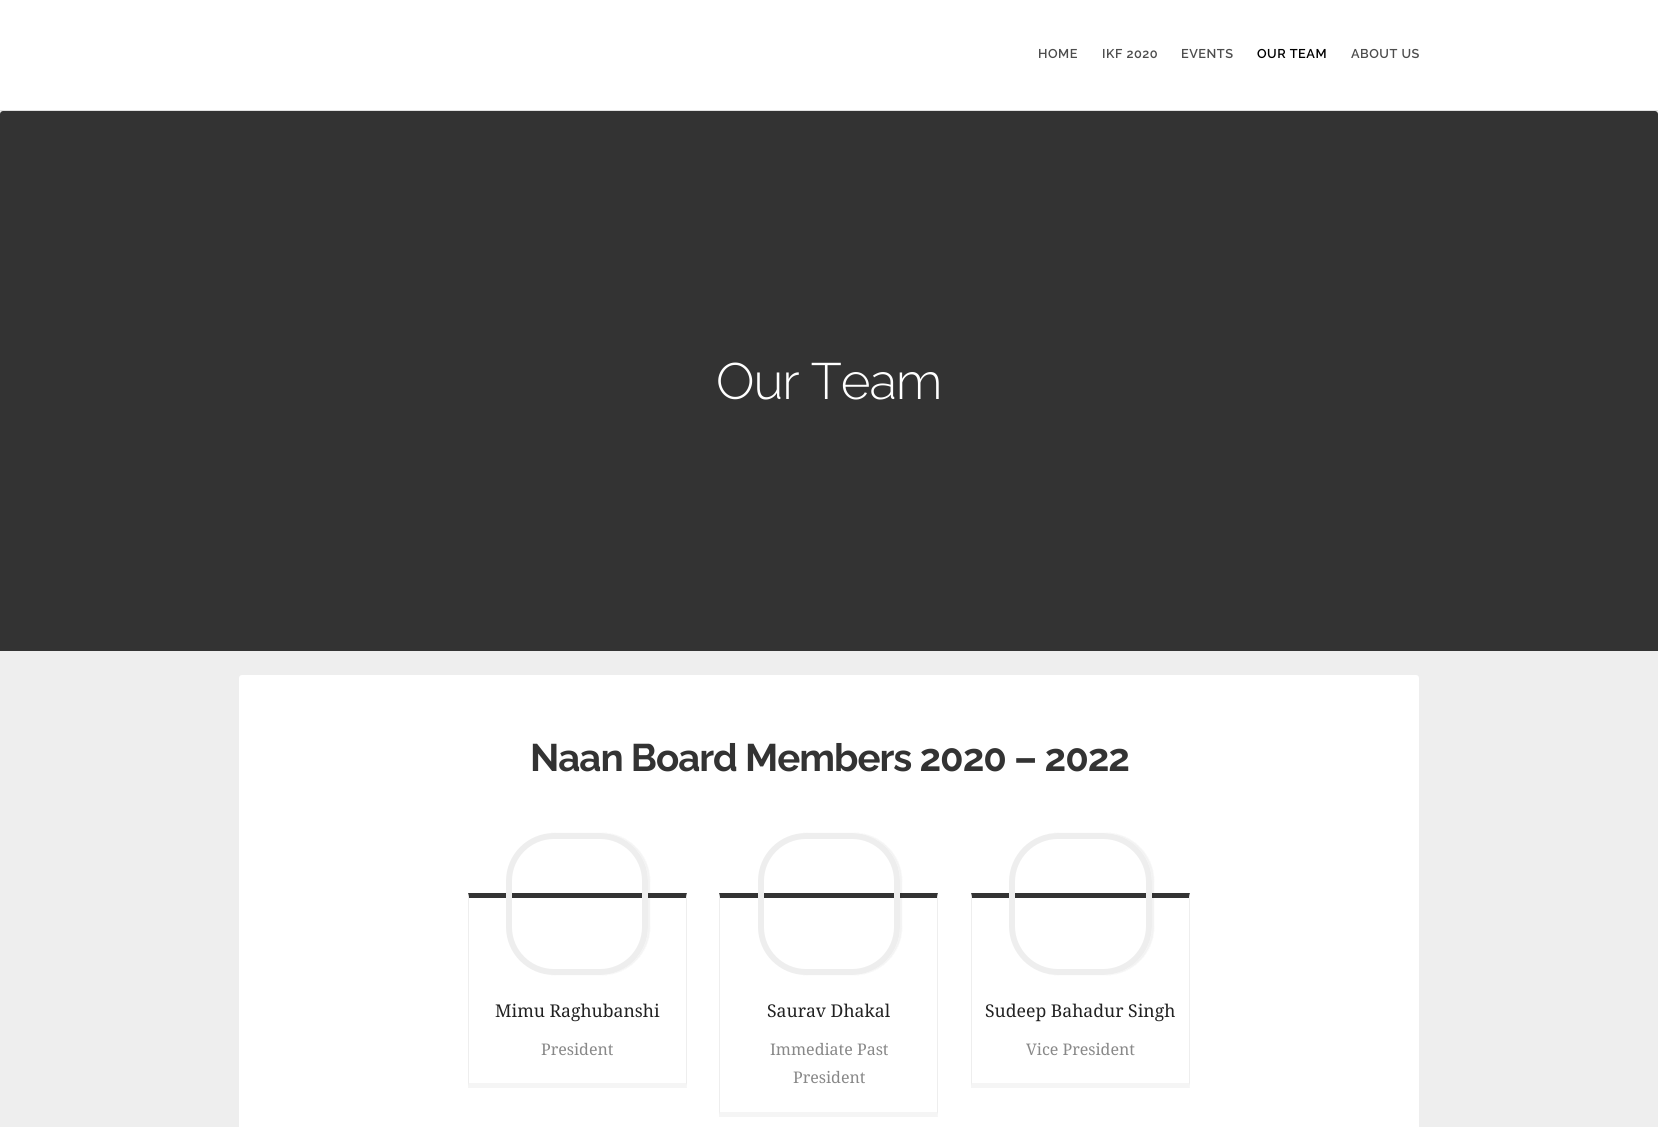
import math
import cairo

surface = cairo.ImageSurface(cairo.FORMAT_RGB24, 1658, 1127)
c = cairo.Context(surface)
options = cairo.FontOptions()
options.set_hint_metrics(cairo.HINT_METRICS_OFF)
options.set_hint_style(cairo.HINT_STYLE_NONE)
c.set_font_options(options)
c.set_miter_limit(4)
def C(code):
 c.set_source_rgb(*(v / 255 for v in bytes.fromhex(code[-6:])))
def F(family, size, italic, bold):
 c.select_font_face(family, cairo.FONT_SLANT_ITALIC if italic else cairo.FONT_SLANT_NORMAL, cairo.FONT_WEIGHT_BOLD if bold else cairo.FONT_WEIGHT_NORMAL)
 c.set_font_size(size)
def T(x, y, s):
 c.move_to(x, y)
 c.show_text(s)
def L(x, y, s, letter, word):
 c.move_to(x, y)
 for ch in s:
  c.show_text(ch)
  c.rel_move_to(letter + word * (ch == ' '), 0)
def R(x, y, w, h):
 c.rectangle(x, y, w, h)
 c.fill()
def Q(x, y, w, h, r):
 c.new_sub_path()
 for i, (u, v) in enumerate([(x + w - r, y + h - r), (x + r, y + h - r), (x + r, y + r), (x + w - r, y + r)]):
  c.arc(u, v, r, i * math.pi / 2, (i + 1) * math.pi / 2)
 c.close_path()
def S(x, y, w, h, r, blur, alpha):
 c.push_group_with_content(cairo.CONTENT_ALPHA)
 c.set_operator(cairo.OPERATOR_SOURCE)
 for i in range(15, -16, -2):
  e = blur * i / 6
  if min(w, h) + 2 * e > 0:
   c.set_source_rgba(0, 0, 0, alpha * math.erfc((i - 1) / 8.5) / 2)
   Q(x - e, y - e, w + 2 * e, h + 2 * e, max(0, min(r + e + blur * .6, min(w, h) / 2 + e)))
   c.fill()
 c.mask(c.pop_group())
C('eeeeee')
c.paint()
C('ffffff')
R(0,0,1658,110)
C('e0e0e0')
R(0,110,1658,1)
F('Raleway SemiBold',12.75,0,0)
C('4d4d4d')
L(1038,58,'HOME',.5,0)
L(1102,58,'IKF 2020',.5,0)
L(1181,58,'EVENTS',.5,0)
C('000000')
L(1257,58,'OUR TEAM',.5,0)
C('4d4d4d')
L(1351,58,'ABOUT US',.5,0)
C('333333')
c.new_path()
c.move_to(3,111)
c.line_to(1655,111)
c.curve_to(1656.5,111,1658,112.5,1658,114)
c.line_to(1658,651)
c.line_to(0,651)
c.line_to(0,114)
c.curve_to(0,112.5,1.5,111,3,111)
c.close_path()
c.fill()
F('Raleway Light',51,0,0)
C('ffffff')
L(716,399,'Our Team',-1,0)
Q(239,675,1180,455,3)
c.fill()
F('Raleway',38.4,0,1)
C('333333')
L(530,771,'Naan Board Members 2020 – 2022',-1,0)
c.new_path()
c.move_to(468,893)
c.line_to(687,893)
c.line_to(686,898)
c.line_to(469,898)
c.close_path()
c.fill()
C('eeeeee')
c.new_path()
c.move_to(687,893)
c.line_to(687,1088)
c.line_to(686,1083)
c.line_to(686,898)
c.close_path()
c.fill()
C('f5f5f5')
c.new_path()
c.move_to(687,1088)
c.line_to(468,1088)
c.line_to(469,1083)
c.line_to(686,1083)
c.close_path()
c.fill()
C('eeeeee')
c.new_path()
c.move_to(468,1088)
c.line_to(468,893)
c.line_to(469,898)
c.line_to(469,1083)
c.close_path()
c.fill()
c.save()
c.set_fill_rule(cairo.FILL_RULE_EVEN_ODD)
c.new_path()
c.move_to(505,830)
c.line_to(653,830)
c.line_to(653,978)
c.line_to(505,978)
c.close_path()
c.move_to(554,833)
c.line_to(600,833)
c.curve_to(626.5,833,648,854.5,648,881)
c.line_to(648,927)
c.curve_to(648,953.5,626.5,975,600,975)
c.line_to(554,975)
c.curve_to(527.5,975,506,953.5,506,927)
c.line_to(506,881)
c.curve_to(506,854.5,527.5,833,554,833)
c.close_path()
c.clip()
C('000000')
S(508,833,142,142,48,.5,.05)
c.restore()
Q(509,836,136,136,45)
c.set_line_width(6)
c.stroke()
F('Noto Serif',17.6,0,0)
C('222222')
T(495,1017,'Mimu Raghubanshi')
F('Noto Serif',16,0,0)
C('888888')
T(541,1055,'President')
C('333333')
c.new_path()
c.move_to(719,893)
c.line_to(938,893)
c.line_to(937,898)
c.line_to(720,898)
c.close_path()
c.fill()
C('eeeeee')
c.new_path()
c.move_to(938,893)
c.line_to(938,1117)
c.line_to(937,1112)
c.line_to(937,898)
c.close_path()
c.fill()
C('f5f5f5')
c.new_path()
c.move_to(938,1117)
c.line_to(719,1117)
c.line_to(720,1112)
c.line_to(937,1112)
c.close_path()
c.fill()
C('eeeeee')
c.new_path()
c.move_to(719,1117)
c.line_to(719,893)
c.line_to(720,898)
c.line_to(720,1112)
c.close_path()
c.fill()
c.save()
c.set_fill_rule(cairo.FILL_RULE_EVEN_ODD)
c.new_path()
c.move_to(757,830)
c.line_to(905,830)
c.line_to(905,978)
c.line_to(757,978)
c.close_path()
c.move_to(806,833)
c.line_to(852,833)
c.curve_to(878.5,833,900,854.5,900,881)
c.line_to(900,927)
c.curve_to(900,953.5,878.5,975,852,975)
c.line_to(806,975)
c.curve_to(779.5,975,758,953.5,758,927)
c.line_to(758,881)
c.curve_to(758,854.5,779.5,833,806,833)
c.close_path()
c.clip()
C('000000')
S(760,833,142,142,48,.5,.05)
c.restore()
Q(761,836,136,136,45)
c.stroke()
F('Noto Serif',17.6,0,0)
C('222222')
T(767,1017,'Saurav Dhakal')
F('Noto Serif',16,0,0)
C('888888')
T(770,1055,'Immediate Past')
T(793,1083,'President')
C('333333')
c.new_path()
c.move_to(971,893)
c.line_to(1190,893)
c.line_to(1189,898)
c.line_to(972,898)
c.close_path()
c.fill()
C('eeeeee')
c.new_path()
c.move_to(1190,893)
c.line_to(1190,1088)
c.line_to(1189,1083)
c.line_to(1189,898)
c.close_path()
c.fill()
C('f5f5f5')
c.new_path()
c.move_to(1190,1088)
c.line_to(971,1088)
c.line_to(972,1083)
c.line_to(1189,1083)
c.close_path()
c.fill()
C('eeeeee')
c.new_path()
c.move_to(971,1088)
c.line_to(971,893)
c.line_to(972,898)
c.line_to(972,1083)
c.close_path()
c.fill()
c.save()
c.set_fill_rule(cairo.FILL_RULE_EVEN_ODD)
c.new_path()
c.move_to(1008,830)
c.line_to(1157,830)
c.line_to(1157,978)
c.line_to(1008,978)
c.close_path()
c.move_to(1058,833)
c.line_to(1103,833)
c.curve_to(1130,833,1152,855,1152,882)
c.line_to(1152,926)
c.curve_to(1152,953,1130,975,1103,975)
c.line_to(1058,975)
c.curve_to(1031,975,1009,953,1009,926)
c.line_to(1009,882)
c.curve_to(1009,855,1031,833,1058,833)
c.close_path()
c.clip()
C('000000')
S(1011,833,143,142,48,.5,.05)
c.restore()
Q(1012,836,137,136,46)
c.stroke()
F('Noto Serif',17.6,0,0)
C('222222')
T(985,1017,'Sudeep Bahadur Singh')
F('Noto Serif',16,0,0)
C('888888')
T(1026,1055,'Vice President')
surface.write_to_png('o.png')
